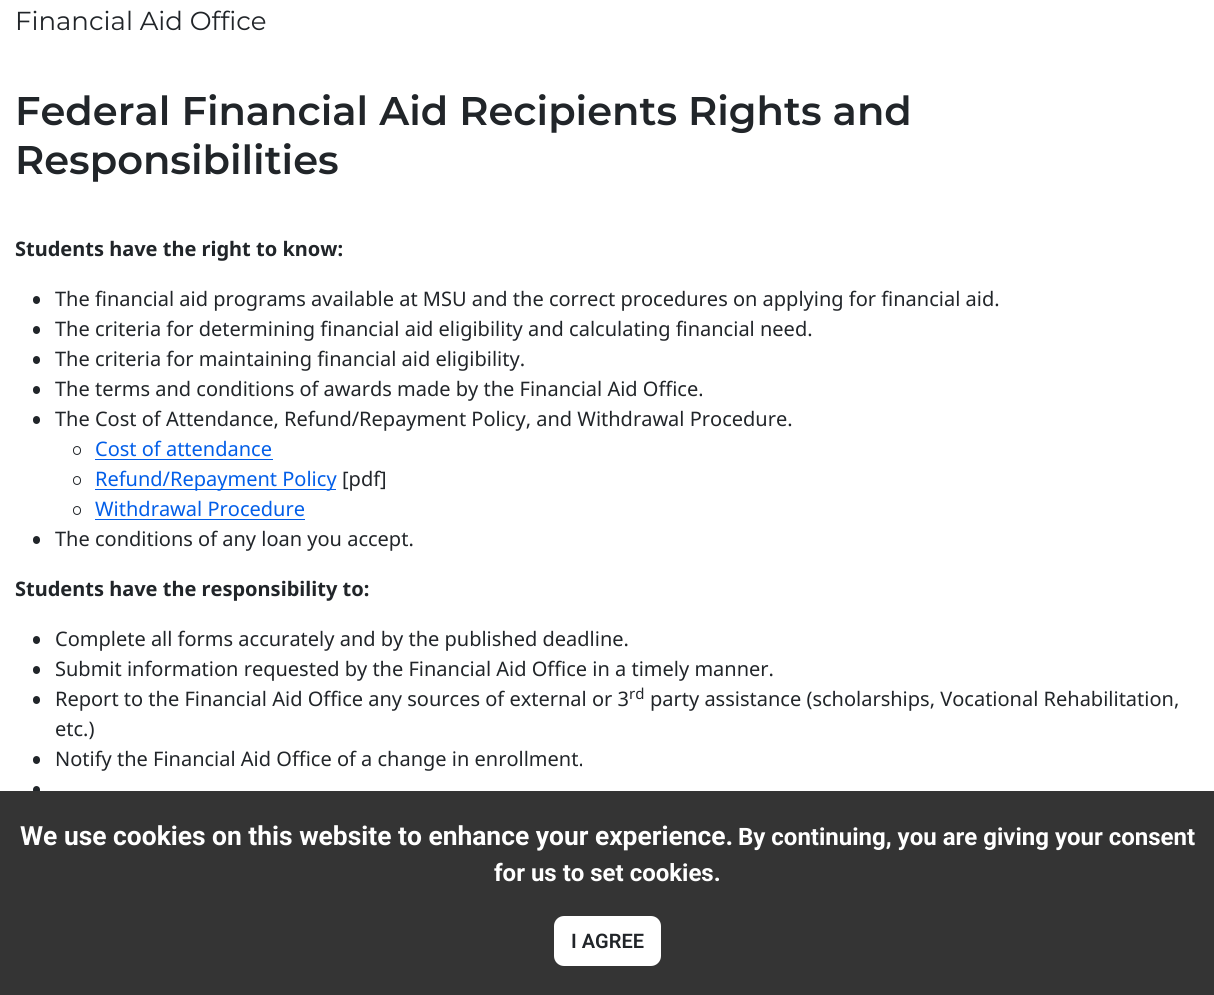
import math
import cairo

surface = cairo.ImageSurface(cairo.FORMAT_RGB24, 1214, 995)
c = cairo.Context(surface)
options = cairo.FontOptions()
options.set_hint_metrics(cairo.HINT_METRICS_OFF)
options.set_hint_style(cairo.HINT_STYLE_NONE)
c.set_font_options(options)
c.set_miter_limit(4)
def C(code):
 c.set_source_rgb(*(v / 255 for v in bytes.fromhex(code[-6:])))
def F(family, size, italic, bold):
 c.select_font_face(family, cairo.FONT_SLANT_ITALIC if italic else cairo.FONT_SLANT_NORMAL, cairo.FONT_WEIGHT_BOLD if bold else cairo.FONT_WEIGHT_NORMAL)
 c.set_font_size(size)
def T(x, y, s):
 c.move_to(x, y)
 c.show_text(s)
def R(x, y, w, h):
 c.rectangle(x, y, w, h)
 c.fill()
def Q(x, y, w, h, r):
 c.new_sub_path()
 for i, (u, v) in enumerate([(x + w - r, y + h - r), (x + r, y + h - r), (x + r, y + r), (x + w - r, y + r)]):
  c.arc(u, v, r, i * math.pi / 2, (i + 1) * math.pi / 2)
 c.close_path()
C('ffffff')
c.paint()
F('Montserrat',26,0,0)
C('212529')
T(15,30,'Financial Aid Office')
F('Montserrat SemiBold',40,0,0)
T(15,125,'Federal Financial Aid Recipients Rights and')
T(15,174,'Responsibilities')
F('Noto Sans',20,0,1)
T(15,256,'Students have the right to know:')
Q(33,296,7,8,3.5)
c.fill()
F('Noto Sans',20,0,0)
T(55,306,'The financial aid programs available at MSU and the correct procedures on applying for financial aid.')
Q(33,326,7,8,3.5)
c.fill()
T(55,336,'The criteria for determining financial aid eligibility and calculating financial need.')
Q(33,356,7,8,3.5)
c.fill()
T(55,366,'The criteria for maintaining financial aid eligibility.')
Q(33,386,7,8,3.5)
c.fill()
T(55,396,'The terms and conditions of awards made by the Financial Aid Office.')
Q(33,416,7,8,3.5)
c.fill()
T(55,426,'The Cost of Attendance, Refund/Repayment Policy, and Withdrawal Procedure.')
Q(73.5,446.5,7,8,3.5)
c.set_line_width(1)
c.stroke()
C('025ee8')
T(95,456,'Cost of attendance')
R(95,459,178,1)
Q(73.5,476.5,7,8,3.5)
C('212529')
c.stroke()
C('025ee8')
R(95,489,241,1)
T(95,486,'Refund/Repayment Policy')
C('212529')
T(342,486,'[pdf]')
Q(73.5,506.5,7,8,3.5)
c.stroke()
C('025ee8')
T(95,516,'Withdrawal Procedure')
R(95,519,210,1)
C('212529')
Q(33,536,7,8,3.5)
c.fill()
T(55,546,'The conditions of any loan you accept.')
F('Noto Sans',20,0,1)
T(15,596,'Students have the responsibility to:')
Q(33,636,7,8,3.5)
c.fill()
F('Noto Sans',20,0,0)
T(55,646,'Complete all forms accurately and by the published deadline.')
Q(33,666,7,8,3.5)
c.fill()
T(55,676,'Submit information requested by the Financial Aid Office in a timely manner.')
Q(33,696,7,8,3.5)
c.fill()
T(55,706,'Report to the Financial Aid Office any sources of external or 3')
F('Noto Sans',15,0,0)
T(629,699,'rd')
F('Noto Sans',20,0,0)
T(650,706,'party assistance (scholarships, Vocational Rehabilitation,')
T(55,736,'etc.)')
Q(33,756,7,8,3.5)
c.fill()
T(55,766,'Notify the Financial Aid Office of a change in enrollment.')
Q(33,786,7,8,3.5)
c.fill()
C('343434')
R(0,791,1214,204)
F('Roboto',26.4,0,1)
C('ffffff')
T(20,845,'We use cookies on this website to enhance your experience.')
F('Roboto',24,0,1)
T(738,845,'By continuing, you are giving your consent')
T(494,881,'for us to set cookies.')
Q(554,916,107,50,10)
c.fill()
F('Roboto SemiBold',20,0,0)
C('212529')
T(571,948,'I AGREE')
surface.write_to_png('o.png')
